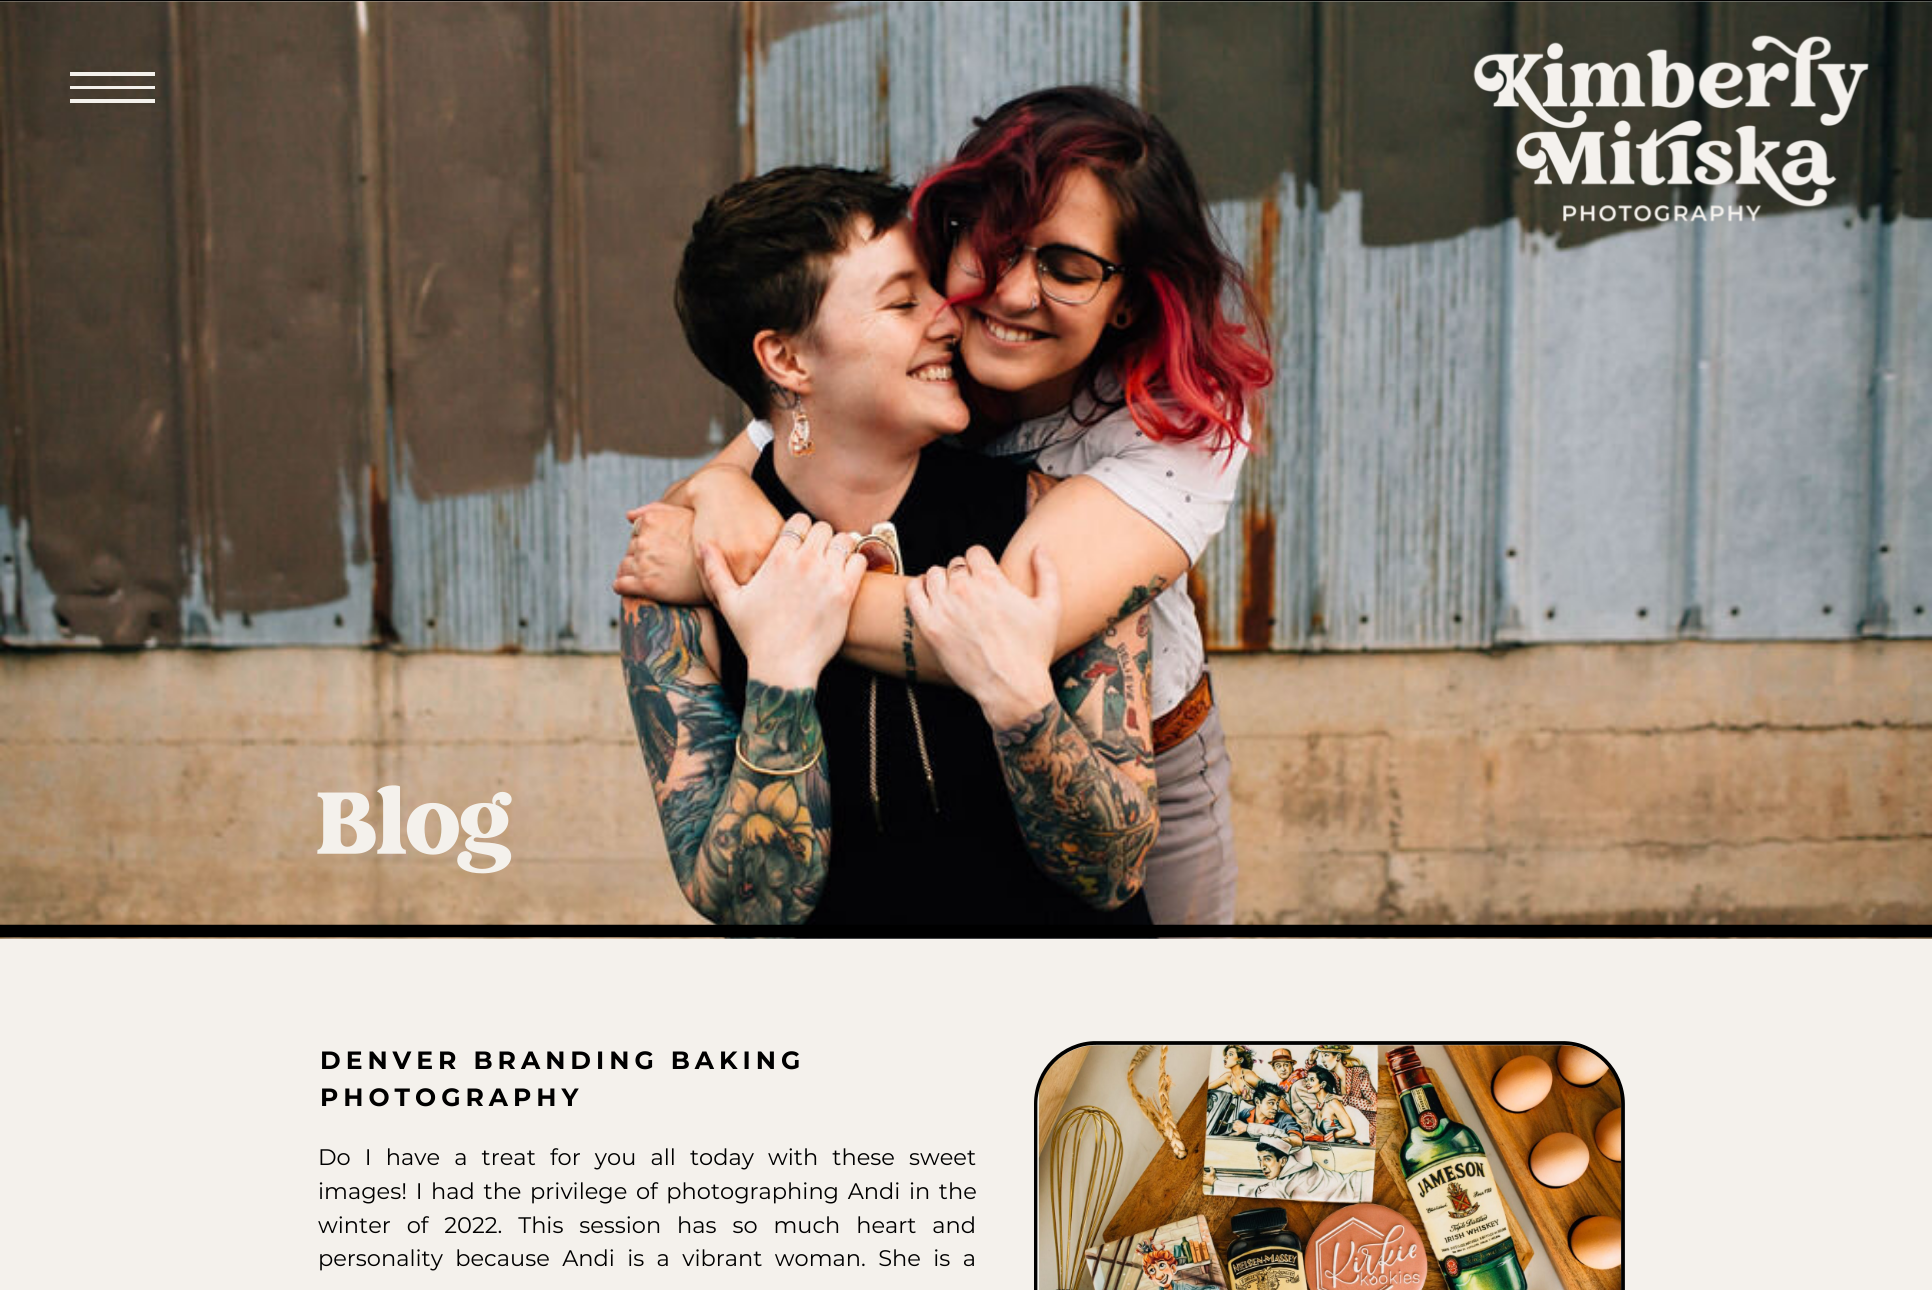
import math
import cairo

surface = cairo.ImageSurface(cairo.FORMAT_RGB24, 1932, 1290)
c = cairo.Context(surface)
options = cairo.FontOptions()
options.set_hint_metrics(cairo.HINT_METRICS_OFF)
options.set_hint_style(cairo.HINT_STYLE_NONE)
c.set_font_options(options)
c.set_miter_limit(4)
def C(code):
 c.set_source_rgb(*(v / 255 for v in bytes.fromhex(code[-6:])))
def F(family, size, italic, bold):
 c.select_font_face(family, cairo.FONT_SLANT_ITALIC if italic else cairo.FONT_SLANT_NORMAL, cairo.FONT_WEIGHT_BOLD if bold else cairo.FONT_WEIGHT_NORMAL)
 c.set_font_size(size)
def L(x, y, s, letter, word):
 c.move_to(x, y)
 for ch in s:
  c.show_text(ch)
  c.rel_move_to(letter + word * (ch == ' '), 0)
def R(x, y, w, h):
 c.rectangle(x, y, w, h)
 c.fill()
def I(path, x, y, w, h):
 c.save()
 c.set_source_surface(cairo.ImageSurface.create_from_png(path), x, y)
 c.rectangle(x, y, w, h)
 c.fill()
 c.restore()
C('ffffff')
c.paint()
C('000000')
R(0,0,1932,1)
I('2.png',0,1,1932,938)
C('f4f1ec')
c.new_path()
c.move_to(70,99)
c.line_to(155,99)
c.line_to(155,103)
c.line_to(70,103)
c.close_path()
c.move_to(70,86)
c.line_to(155,86)
c.line_to(155,89)
c.line_to(70,89)
c.close_path()
c.move_to(70,72)
c.line_to(155,72)
c.line_to(155,76)
c.line_to(70,76)
c.close_path()
c.fill()
I('1.png',1473,35,396,187)
I('3.png',317,785,195,89)
c.new_path()
c.move_to(-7.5,931)
c.line_to(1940,931)
C('000000')
c.set_line_width(12.5)
c.stroke()
C('f4f1ec')
R(0,939,1932,351)
I('4.png',1037,1045,588,245)
c.save()
c.new_path()
c.move_to(1562.5,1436)
c.line_to(1096,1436)
c.curve_to(1061.5,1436,1034,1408.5,1034,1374)
c.line_to(1034,1104)
c.curve_to(1034,1069,1061.5,1041,1096,1041)
c.line_to(1562.5,1041)
c.curve_to(1597,1041,1625,1069,1625,1104)
c.line_to(1625,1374)
c.curve_to(1625,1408.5,1597,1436,1562.5,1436)
c.close_path()
c.clip()
c.new_path()
c.move_to(1562.5,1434.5)
c.line_to(1096,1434.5)
c.curve_to(1063,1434.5,1035.5,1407,1035.5,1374)
c.line_to(1035.5,1104)
c.curve_to(1035.5,1070.5,1063,1043,1096,1043)
c.line_to(1562.5,1043)
c.curve_to(1596,1043,1623,1070.5,1623,1104)
c.line_to(1623,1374)
c.curve_to(1623,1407,1596,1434.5,1562.5,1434.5)
c.close_path()
C('000000')
c.set_line_width(3.8)
c.stroke()
c.restore()
F('Montserrat',25,0,1)
C('000000')
L(320,1069,'DENVER BRANDING BAKING',5,0)
L(320,1106,'PHOTOGRAPHY',5,0)
F('Montserrat',22.5,0,0)
L(318,1165,'Do I have a treat for you all today with these sweet',0,8.25)
L(318,1199,'images! I had the privilege of photographing Andi in the',0,2.75)
L(318,1233,'winter of 2022. This session has so much heart and',0,10)
L(318,1266,'personality because Andi is a vibrant woman. She is a',0,6.5)
surface.write_to_png('o.png')
